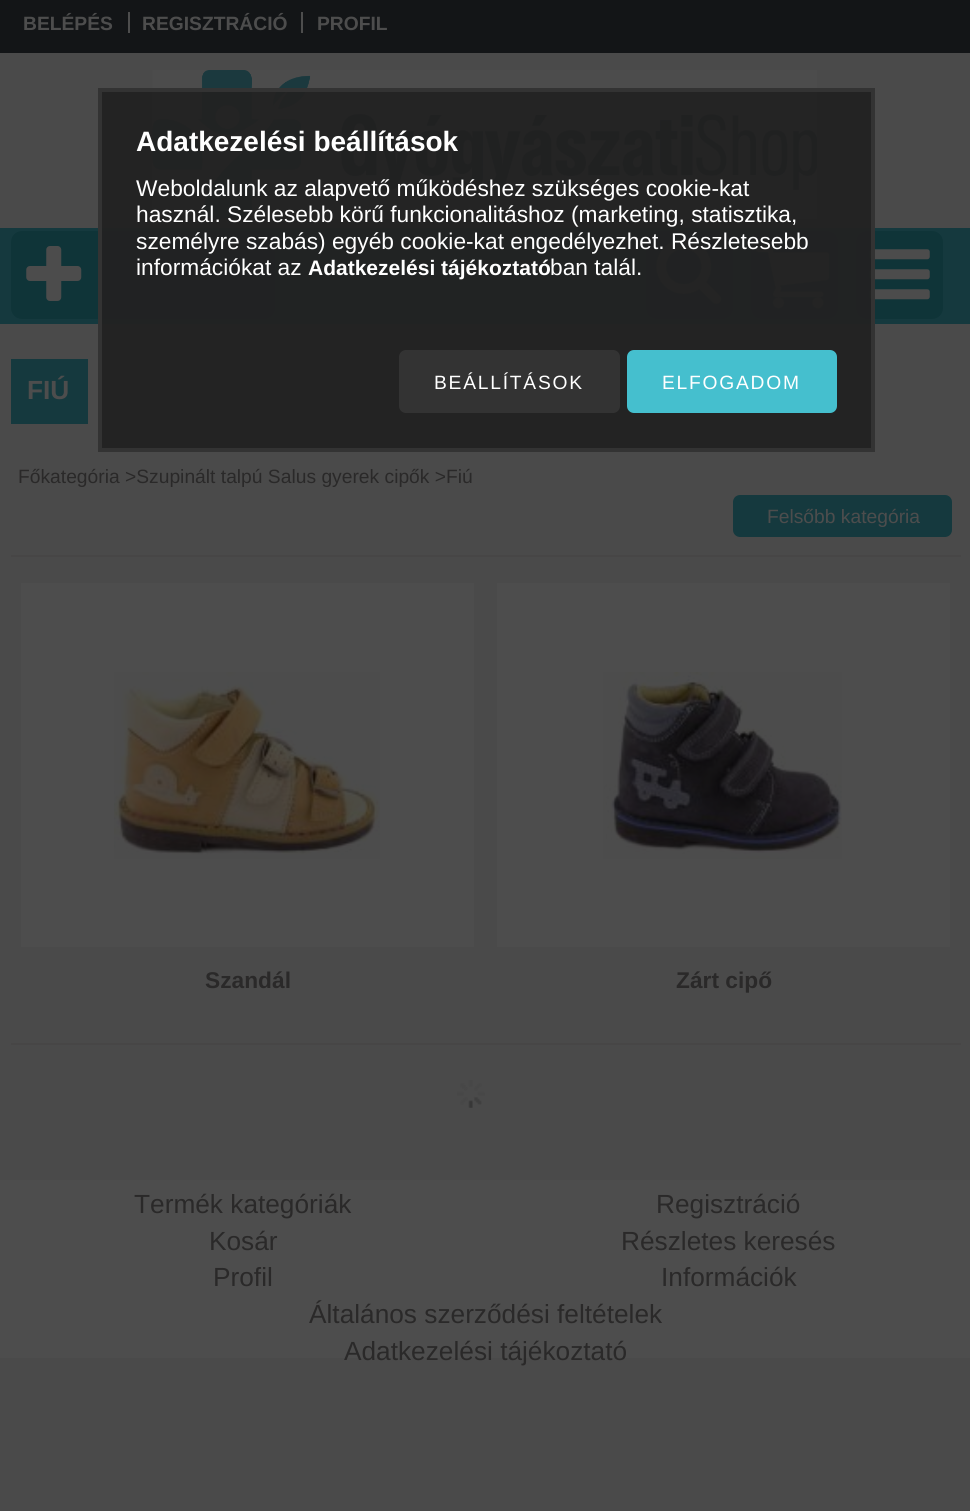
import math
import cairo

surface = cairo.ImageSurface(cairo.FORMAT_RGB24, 970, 1511)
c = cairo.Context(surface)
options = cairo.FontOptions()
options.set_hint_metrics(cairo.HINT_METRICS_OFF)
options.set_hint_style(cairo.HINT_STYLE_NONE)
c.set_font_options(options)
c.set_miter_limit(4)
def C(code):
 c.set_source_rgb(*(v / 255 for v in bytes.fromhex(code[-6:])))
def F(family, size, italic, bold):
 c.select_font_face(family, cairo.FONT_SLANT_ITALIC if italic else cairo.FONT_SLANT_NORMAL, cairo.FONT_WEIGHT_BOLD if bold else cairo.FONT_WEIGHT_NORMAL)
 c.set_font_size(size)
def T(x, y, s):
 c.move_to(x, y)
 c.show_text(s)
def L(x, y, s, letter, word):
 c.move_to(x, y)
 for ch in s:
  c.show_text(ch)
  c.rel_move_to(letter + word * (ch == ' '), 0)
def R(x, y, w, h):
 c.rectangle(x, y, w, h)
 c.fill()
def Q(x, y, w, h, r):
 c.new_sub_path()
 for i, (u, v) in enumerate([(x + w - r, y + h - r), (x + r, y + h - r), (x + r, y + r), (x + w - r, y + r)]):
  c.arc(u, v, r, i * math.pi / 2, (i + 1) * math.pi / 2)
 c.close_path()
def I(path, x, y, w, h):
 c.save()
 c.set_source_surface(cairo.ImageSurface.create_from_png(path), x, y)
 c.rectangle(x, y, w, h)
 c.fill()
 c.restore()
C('4a4a4a')
c.paint()
C('131517')
R(0,0,970,53)
F('Liberation Sans',19.25,0,1)
C('4d4d4d')
T(23,30,'BELÉPÉS')
R(128,12,2,21)
T(142,30,'REGISZTRÁCIÓ')
R(301,12,2,21)
T(317,30,'PROFIL')
I('1.png',152,70,666,149)
C('15393e')
R(0,228,970,96)
C('0f3438')
Q(11,231,264,88,11)
c.fill()
I('2.png',26,246,56,55)
Q(646,231,87,88,11)
c.fill()
I('3.png',656,239,66,65)
Q(751,231,87,88,11)
c.fill()
I('4.png',756,246,74,63)
Q(856,231,87,88,11)
c.fill()
I('5.png',869,249,61,51)
C('15393e')
R(11,359,77,65)
F('Liberation Sans',26.25,0,1)
C('4d4d4d')
T(27,399,'FIÚ')
F('Liberation Sans',19.25,0,0)
C('2a2929')
T(18,483,'Főkategória >Szupinált talpú Salus gyerek cipők >Fiú')
C('15393e')
Q(733,495,219,42,7)
c.fill()
C('4d4d4d')
T(767,523,'Felsőbb kategória')
C('474646')
R(11,555,950,2)
C('4d4d4d')
R(21,583,453,364)
I('6.png',114,672,266,187)
F('Liberation Sans',22.75,0,1)
C('2a2929')
T(205,988,'Szandál')
C('4d4d4d')
R(497,583,453,364)
I('7.png',603,672,239,187)
C('2a2929')
T(676,988,'Zárt cipő')
C('474646')
R(11,1043,950,2)
I('8.png',457,1080,28,28)
C('4d4d4d')
R(0,1180,970,178)
F('Liberation Sans',26.25,0,0)
C('2a2929')
T(134,1213,'Termék kategóriák')
T(656,1213,'Regisztráció')
T(209,1250,'Kosár')
T(621,1250,'Részletes keresés')
T(213,1286,'Profil')
T(661,1286,'Információk')
T(309,1323,'Általános szerződési feltételek')
T(344,1360,'Adatkezelési tájékoztató')
c.set_source_rgba(0.133,0.133,0.133,0.95)
c.rectangle(100,90,773,360)
c.fill_preserve()
C('333333')
c.set_line_width(4)
c.stroke()
F('Liberation Sans',28,0,1)
C('ffffff')
T(136,151,'Adatkezelési beállítások')
F('Liberation Sans',22.75,0,0)
T(136,196,'Weboldalunk az alapvető működéshez szükséges cookie-kat')
T(136,222,'használ. Szélesebb körű funkcionalitáshoz (marketing, statisztika,')
T(136,249,'személyre szabás) egyéb cookie-kat engedélyezhet. Részletesebb')
T(136,275,'információkat az')
F('Liberation Sans',21,0,1)
T(308,275,'Adatkezelési tájékoztató')
F('Liberation Sans',22.75,0,0)
T(550,275,'ban talál.')
C('333333')
Q(399,350,221,63,7)
c.fill()
F('Liberation Sans',19.25,0,0)
C('ffffff')
L(434,389,'BEÁLLÍTÁSOK',1.75,0)
C('45bfce')
Q(627,350,210,63,7)
c.fill()
C('ffffff')
L(662,389,'ELFOGADOM',1.75,0)
surface.write_to_png('o.png')
